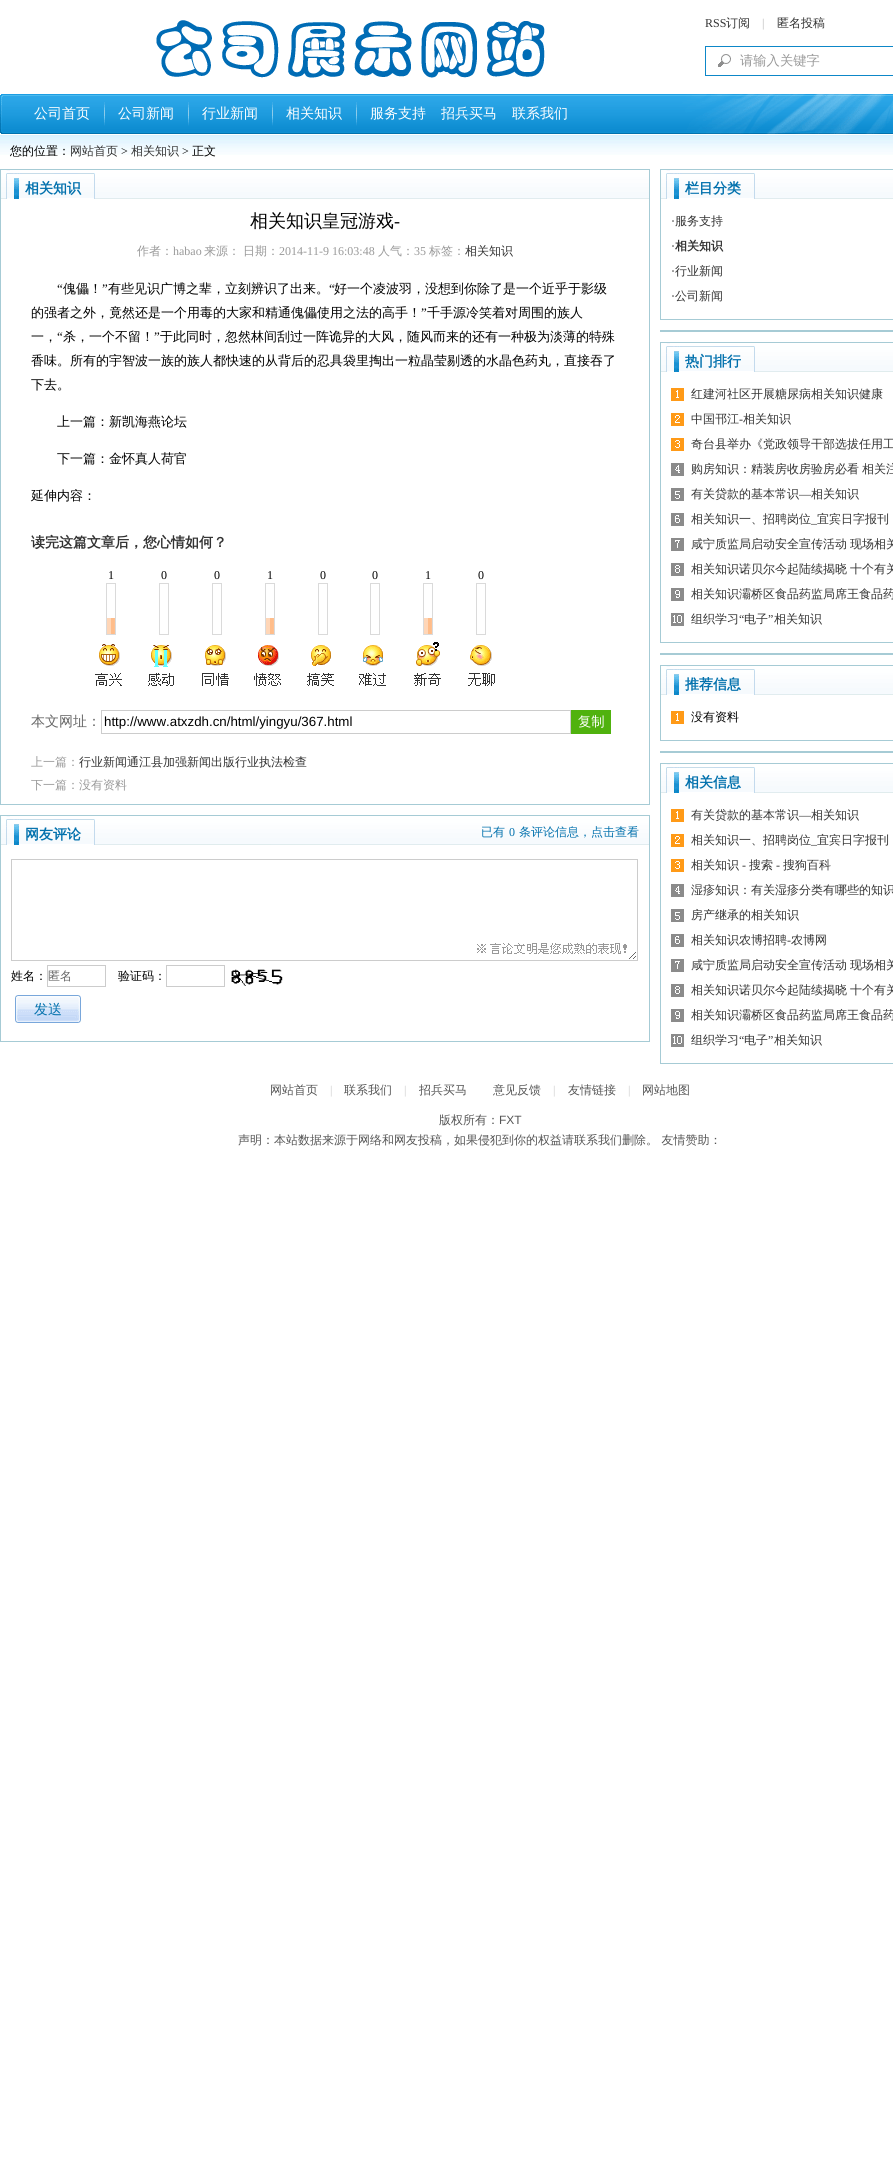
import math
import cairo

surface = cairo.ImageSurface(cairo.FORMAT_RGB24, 893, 2168)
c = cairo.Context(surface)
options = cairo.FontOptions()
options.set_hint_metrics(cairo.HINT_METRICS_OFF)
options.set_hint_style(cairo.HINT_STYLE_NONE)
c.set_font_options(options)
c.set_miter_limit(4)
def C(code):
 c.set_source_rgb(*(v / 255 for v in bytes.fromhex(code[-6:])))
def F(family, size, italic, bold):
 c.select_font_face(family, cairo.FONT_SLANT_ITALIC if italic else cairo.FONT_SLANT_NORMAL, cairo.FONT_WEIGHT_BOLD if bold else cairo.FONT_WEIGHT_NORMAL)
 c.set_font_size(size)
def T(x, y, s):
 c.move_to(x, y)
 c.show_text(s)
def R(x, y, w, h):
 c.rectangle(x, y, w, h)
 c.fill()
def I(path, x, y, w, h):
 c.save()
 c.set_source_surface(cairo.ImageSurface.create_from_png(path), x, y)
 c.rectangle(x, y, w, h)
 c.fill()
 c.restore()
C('ffffff')
c.paint()
I('1.png',156,20,389,58)
F('Liberation Serif',12,0,0)
C('333333')
T(705,27,'RSS')
F('WenQuanYi Zen Hei Medium',12,0,0)
T(726,27,'订阅')
F('Liberation Serif',12,0,0)
C('b8b8b8')
T(762,27,'|')
F('WenQuanYi Zen Hei Medium',12,0,0)
C('333333')
T(777,27,'匿名投稿')
I('2.png',718,54,13,13)
c.rectangle(705.5,46.5,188,29)
C('0d87c8')
c.set_line_width(1)
c.stroke()
F('WenQuanYi Zen Hei Medium',13.3,0,0)
C('999999')
T(740,65,'请输入关键字')
I('3.png',3,94,890,40)
I('4.png',0,94,3,40)
F('WenQuanYi Zen Hei Medium',14,0,0)
C('ffffff')
T(34,118,'公司首页')
I('5.png',104,102,1,24)
T(118,118,'公司新闻')
I('5.png',188,102,1,24)
T(202,118,'行业新闻')
I('5.png',272,102,1,24)
T(286,118,'相关知识')
I('5.png',356,102,1,24)
T(370,118,'服务支持')
T(441,118,'招兵买马')
T(512,118,'联系我们')
I('6.png',0,134,893,21)
F('WenQuanYi Zen Hei Medium',12,0,0)
C('000000')
T(10,155,'您的位置：')
C('333333')
T(70,155,'网站首页')
F('Liberation Serif',12,0,0)
C('000000')
T(121,155,'>')
F('WenQuanYi Zen Hei Medium',12,0,0)
C('333333')
T(131,155,'相关知识')
F('Liberation Serif',12,0,0)
C('000000')
T(182,155,'>')
F('WenQuanYi Zen Hei Medium',12,0,0)
T(192,155,'正文')
c.rectangle(.5,169.5,649,635)
C('a6cbd5')
c.stroke()
I('7.png',1,170,648,29)
F('WenQuanYi Zen Hei',14,0,1)
C('0271ad')
T(25,193,'相关知识')
F('WenQuanYi Zen Hei Medium',18,0,0)
C('000000')
T(250,227,'相关知识皇冠游戏')
F('Liberation Serif',18,0,0)
T(394,227,'-')
F('WenQuanYi Zen Hei Medium',12,0,0)
C('999999')
T(137,255,'作者：')
F('Liberation Serif',12,0,0)
T(173,255,'habao')
F('WenQuanYi Zen Hei Medium',12,0,0)
T(204,255,'来源：')
T(243,255,'日期：')
F('Liberation Serif',12,0,0)
T(279,255,'2014-11-9 16:03:48')
F('WenQuanYi Zen Hei Medium',12,0,0)
T(378,255,'人气：')
F('Liberation Serif',12,0,0)
T(414,255,'35')
F('WenQuanYi Zen Hei Medium',12,0,0)
T(429,255,'标签：')
C('333333')
T(465,255,'相关知识')
F('Liberation Serif',13,0,0)
C('000000')
T(57,293,'“')
F('WenQuanYi Zen Hei Medium',13,0,0)
T(63,293,'傀儡！')
F('Liberation Serif',13,0,0)
T(102,293,'”')
F('WenQuanYi Zen Hei Medium',13,0,0)
T(108,293,'有些见识广博之辈，立刻辨识了出来。')
F('Liberation Serif',13,0,0)
T(329,293,'“')
F('WenQuanYi Zen Hei Medium',13,0,0)
T(334,293,'好一个凌波羽，没想到你除了是一个近乎于影级')
T(31,317,'的强者之外，竟然还是一个用毒的大家和精通傀儡使用之法的高手！')
F('Liberation Serif',13,0,0)
T(421,317,'”')
F('WenQuanYi Zen Hei Medium',13,0,0)
T(427,317,'千手源冷笑着对周围的族人')
F('Liberation Serif',13,0,0)
T(57,341,'“')
F('WenQuanYi Zen Hei Medium',13,0,0)
T(63,341,'杀，一个不留！')
F('Liberation Serif',13,0,0)
T(154,341,'”')
F('WenQuanYi Zen Hei Medium',13,0,0)
T(160,341,'于此同时，忽然林间刮过一阵诡异的大风，随风而来的还有一种极为淡薄的特殊')
T(31,341,'一，')
T(31,365,'香味。所有的宇智波一族的族人都快速的从背后的忍具袋里掏出一粒晶莹剔透的水晶色药丸，直接吞了')
T(31,389,'下去。')
T(57,426,'上一篇：新凯海燕论坛')
T(57,463,'下一篇：金怀真人荷官')
T(31,500,'延伸内容：')
F('WenQuanYi Zen Hei',14,0,1)
C('333333')
T(31,547,'读完这篇文章后，您心情如何？')
F('Liberation Serif',12,0,0)
C('000000')
T(108,579,'1')
c.rectangle(106.5,583.5,9,51)
C('dadada')
c.stroke()
I('8.png',107,618,8,16)
I('9.png',95,644,27,42)
C('000000')
T(161,579,'0')
c.rectangle(159.5,583.5,9,51)
C('dadada')
c.stroke()
I('10.png',148,645,26,41)
C('000000')
T(214,579,'0')
c.rectangle(212.5,583.5,9,51)
C('dadada')
c.stroke()
I('11.png',202,645,27,41)
C('000000')
T(267,579,'1')
c.rectangle(265.5,583.5,9,51)
C('dadada')
c.stroke()
I('8.png',266,618,8,16)
I('12.png',254,645,27,41)
C('000000')
T(320,579,'0')
c.rectangle(318.5,583.5,9,51)
C('dadada')
c.stroke()
I('13.png',307,645,27,41)
C('000000')
T(372,579,'0')
c.rectangle(370.5,583.5,9,51)
C('dadada')
c.stroke()
I('14.png',359,645,27,41)
C('000000')
T(425,579,'1')
c.rectangle(423.5,583.5,9,51)
C('dadada')
c.stroke()
I('8.png',424,618,8,16)
I('15.png',414,642,27,44)
C('000000')
T(478,579,'0')
c.rectangle(476.5,583.5,9,51)
C('dadada')
c.stroke()
I('16.png',468,645,27,41)
F('WenQuanYi Zen Hei Medium',14,0,0)
C('666666')
T(31,726,'本文网址：')
c.rectangle(101.5,710.5,469,23)
C('cccccc')
c.stroke()
F('Liberation Sans',13.3,0,0)
C('000000')
T(104,726,'http://www.atxzdh.cn/html/yingyu/367.html')
C('50b20e')
R(571,710,40,24)
F('WenQuanYi Zen Hei Medium',13.3,0,0)
C('ffffff')
T(578,726,'复制')
F('WenQuanYi Zen Hei Medium',12,0,0)
C('999999')
T(31,766,'上一篇：')
C('333333')
T(79,766,'行业新闻通江县加强新闻出版行业执法检查')
C('999999')
T(31,789,'下一篇：没有资料')
c.rectangle(.5,815.5,649,226)
C('a6cbd5')
c.stroke()
I('7.png',1,816,648,29)
F('WenQuanYi Zen Hei',14,0,1)
C('0271ad')
T(25,839,'网友评论')
F('WenQuanYi Zen Hei Medium',12,0,0)
T(481,836,'已有')
F('Liberation Serif',12,0,0)
T(509,836,'0')
F('WenQuanYi Zen Hei Medium',12,0,0)
T(519,836,'条评论信息，点击查看')
I('17.png',477,943,159,16)
c.rectangle(11.5,859.5,626,101)
C('cccccc')
c.stroke()
C('000000')
T(11,980,'姓名：')
c.rectangle(47.5,965.5,58,21)
C('cccccc')
c.stroke()
C('666666')
T(48,980,'匿名')
C('000000')
T(118,980,'验证码：')
c.rectangle(166.5,965.5,58,21)
C('cccccc')
c.stroke()
I('18.png',231,969,52,17)
I('19.png',15,995,66,28)
F('WenQuanYi Zen Hei Medium',14,0,0)
C('0271ad')
T(34,1014,'发送')
c.rectangle(660.5,169.5,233,150)
C('a6cbd5')
c.stroke()
I('20.png',661,170,232,29)
F('WenQuanYi Zen Hei',14,0,1)
C('0271ad')
T(685,193,'栏目分类')
F('Liberation Serif',12,0,0)
C('000000')
T(671,225,'·')
F('WenQuanYi Zen Hei Medium',12,0,0)
C('333333')
T(675,225,'服务支持')
F('Liberation Serif',12,0,0)
C('000000')
T(671,250,'·')
F('WenQuanYi Zen Hei',12,0,1)
C('333333')
T(675,250,'相关知识')
F('Liberation Serif',12,0,0)
C('000000')
T(671,275,'·')
F('WenQuanYi Zen Hei Medium',12,0,0)
C('333333')
T(675,275,'行业新闻')
F('Liberation Serif',12,0,0)
C('000000')
T(671,300,'·')
F('WenQuanYi Zen Hei Medium',12,0,0)
C('333333')
T(675,300,'公司新闻')
C('a6cbd5')
R(660,330,233,2)
c.rectangle(660.5,342.5,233,300)
c.stroke()
I('20.png',661,343,232,29)
F('WenQuanYi Zen Hei',14,0,1)
C('0271ad')
T(685,366,'热门排行')
I('21.png',671,388,13,238)
F('WenQuanYi Zen Hei Medium',12,0,0)
C('333333')
T(691,398,'红建河社区开展糖尿病相关知识健康')
T(691,423,'中国邗江')
F('Liberation Serif',12,0,0)
T(739,423,'-')
F('WenQuanYi Zen Hei Medium',12,0,0)
T(743,423,'相关知识')
T(691,448,'奇台县举办《党政领导干部选拔任用工')
T(691,473,'购房知识：精装房收房验房必看')
T(862,473,'相关注')
T(691,498,'有关贷款的基本常识')
F('Liberation Serif',12,0,0)
T(799,498,'—')
F('WenQuanYi Zen Hei Medium',12,0,0)
T(811,498,'相关知识')
T(691,523,'相关知识一、招聘岗位')
F('Liberation Serif',12,0,0)
T(811,523,'_')
F('WenQuanYi Zen Hei Medium',12,0,0)
T(817,523,'宜宾日字报刊')
T(691,548,'咸宁质监局启动安全宣传活动')
T(850,548,'现场相关')
T(691,573,'相关知识诺贝尔今起陆续揭晓')
T(850,573,'十个有关')
T(691,598,'相关知识灞桥区食品药监局席王食品药')
T(691,623,'组织学习')
F('Liberation Serif',12,0,0)
T(739,623,'“')
F('WenQuanYi Zen Hei Medium',12,0,0)
T(744,623,'电子')
F('Liberation Serif',12,0,0)
T(768,623,'”')
F('WenQuanYi Zen Hei Medium',12,0,0)
T(774,623,'相关知识')
C('a6cbd5')
R(660,653,233,2)
c.rectangle(660.5,665.5,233,75)
c.stroke()
I('20.png',661,666,232,29)
F('WenQuanYi Zen Hei',14,0,1)
C('0271ad')
T(685,689,'推荐信息')
I('22.png',671,711,13,13)
F('WenQuanYi Zen Hei Medium',12,0,0)
C('000000')
T(691,721,'没有资料')
C('a6cbd5')
R(660,751,233,2)
c.rectangle(660.5,763.5,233,300)
c.stroke()
I('20.png',661,764,232,29)
F('WenQuanYi Zen Hei',14,0,1)
C('0271ad')
T(685,787,'相关信息')
I('21.png',671,809,13,238)
F('WenQuanYi Zen Hei Medium',12,0,0)
C('333333')
T(691,819,'有关贷款的基本常识')
F('Liberation Serif',12,0,0)
T(799,819,'—')
F('WenQuanYi Zen Hei Medium',12,0,0)
T(811,819,'相关知识')
T(691,844,'相关知识一、招聘岗位')
F('Liberation Serif',12,0,0)
T(811,844,'_')
F('WenQuanYi Zen Hei Medium',12,0,0)
T(817,844,'宜宾日字报刊')
T(691,869,'相关知识')
F('Liberation Serif',12,0,0)
T(742,869,'-')
F('WenQuanYi Zen Hei Medium',12,0,0)
T(749,869,'搜索')
F('Liberation Serif',12,0,0)
T(776,869,'-')
F('WenQuanYi Zen Hei Medium',12,0,0)
T(783,869,'搜狗百科')
T(691,894,'湿疹知识：有关湿疹分类有哪些的知识')
T(691,919,'房产继承的相关知识')
T(691,944,'相关知识农博招聘')
F('Liberation Serif',12,0,0)
T(787,944,'-')
F('WenQuanYi Zen Hei Medium',12,0,0)
T(791,944,'农博网')
T(691,969,'咸宁质监局启动安全宣传活动')
T(850,969,'现场相关')
T(691,994,'相关知识诺贝尔今起陆续揭晓')
T(850,994,'十个有关')
T(691,1019,'相关知识灞桥区食品药监局席王食品药')
T(691,1044,'组织学习')
F('Liberation Serif',12,0,0)
T(739,1044,'“')
F('WenQuanYi Zen Hei Medium',12,0,0)
T(744,1044,'电子')
F('Liberation Serif',12,0,0)
T(768,1044,'”')
F('WenQuanYi Zen Hei Medium',12,0,0)
T(774,1044,'相关知识')
C('555555')
T(270,1094,'网站首页')
F('Liberation Serif',12,0,0)
C('cccccc')
T(330,1094,'|')
F('WenQuanYi Zen Hei Medium',12,0,0)
C('555555')
T(344,1094,'联系我们')
F('Liberation Serif',12,0,0)
C('cccccc')
T(404,1094,'|')
F('WenQuanYi Zen Hei Medium',12,0,0)
C('555555')
T(419,1094,'招兵买马')
T(493,1094,'意见反馈')
F('Liberation Serif',12,0,0)
C('cccccc')
T(553,1094,'|')
F('WenQuanYi Zen Hei Medium',12,0,0)
C('555555')
T(568,1094,'友情链接')
F('Liberation Serif',12,0,0)
C('cccccc')
T(628,1094,'|')
F('WenQuanYi Zen Hei Medium',12,0,0)
C('555555')
T(642,1094,'网站地图')
T(439,1124,'版权所有：')
F('Liberation Sans',12,0,0)
T(499,1124,'FXT')
F('WenQuanYi Zen Hei Medium',12,0,0)
T(238,1144,'声明：本站数据来源于网络和网友投稿，如果侵犯到你的权益请联系我们删除。 友情赞助：')
surface.write_to_png('o.png')
